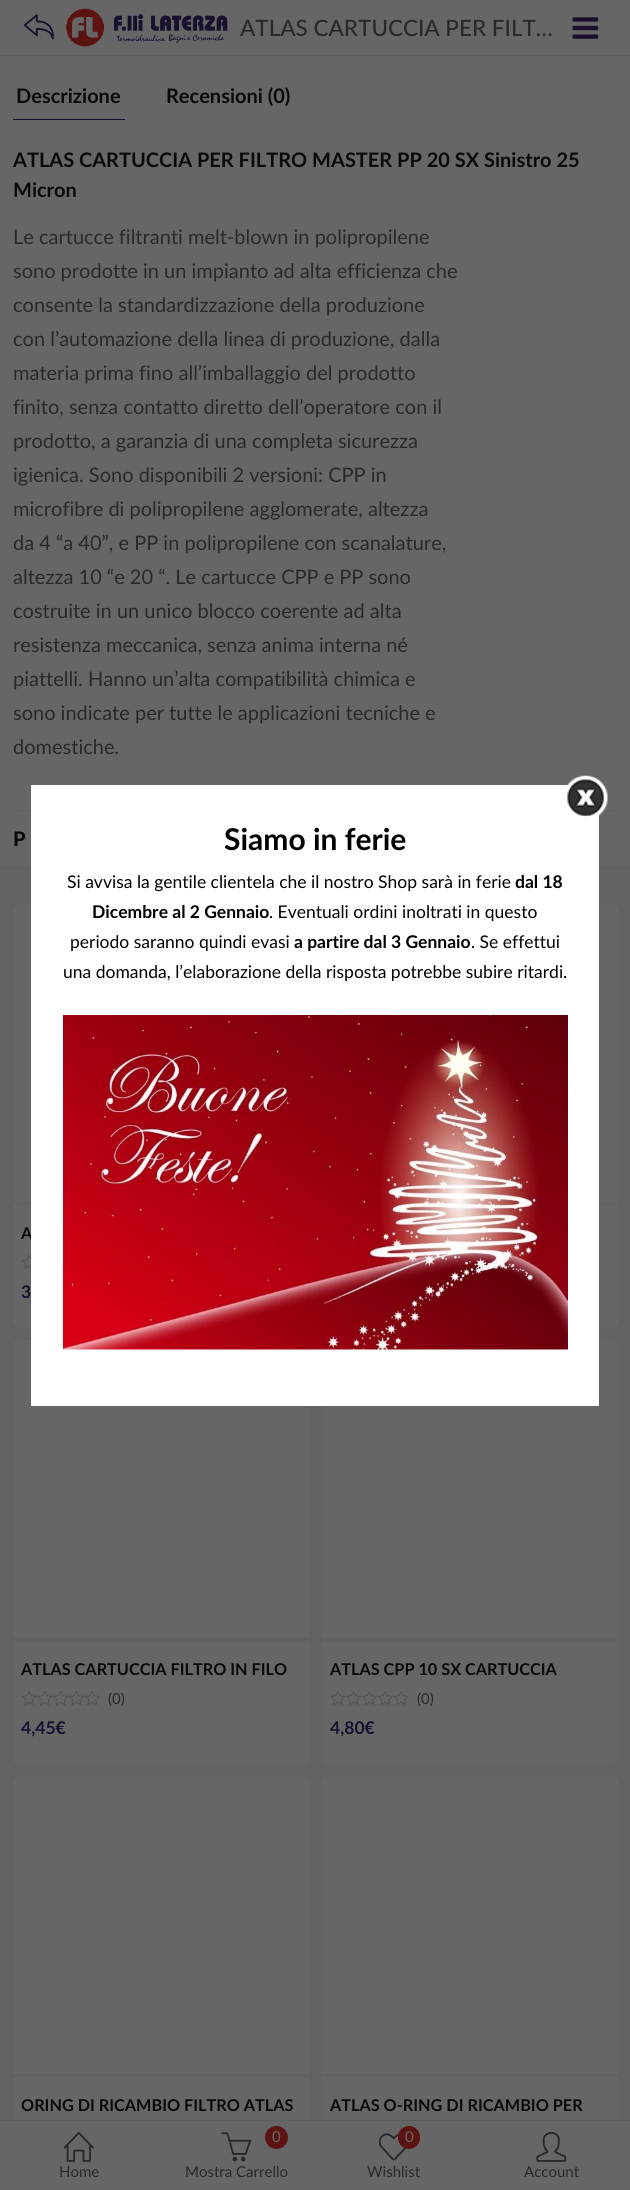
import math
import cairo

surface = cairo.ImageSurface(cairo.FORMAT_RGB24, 630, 2190)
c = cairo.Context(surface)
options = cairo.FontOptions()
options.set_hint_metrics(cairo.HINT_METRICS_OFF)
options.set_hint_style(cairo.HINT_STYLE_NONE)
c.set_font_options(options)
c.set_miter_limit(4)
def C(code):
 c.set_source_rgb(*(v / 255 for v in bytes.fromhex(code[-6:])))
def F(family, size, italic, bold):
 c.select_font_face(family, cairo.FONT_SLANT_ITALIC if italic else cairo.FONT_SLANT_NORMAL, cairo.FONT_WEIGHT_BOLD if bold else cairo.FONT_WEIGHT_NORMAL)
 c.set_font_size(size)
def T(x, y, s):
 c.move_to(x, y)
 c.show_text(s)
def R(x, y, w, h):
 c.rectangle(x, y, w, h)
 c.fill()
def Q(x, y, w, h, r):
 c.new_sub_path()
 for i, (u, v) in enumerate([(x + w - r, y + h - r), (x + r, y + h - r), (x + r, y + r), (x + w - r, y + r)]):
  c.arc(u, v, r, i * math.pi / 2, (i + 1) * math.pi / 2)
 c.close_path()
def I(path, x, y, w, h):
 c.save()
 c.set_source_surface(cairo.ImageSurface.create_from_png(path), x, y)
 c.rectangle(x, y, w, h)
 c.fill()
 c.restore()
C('666666')
c.paint()
C('5d5d5d')
R(0,55,630,1)
I('1.png',23,14,31,26)
I('2.png',66,8,162,39)
F('Lato Medium',22.5,0,0)
C('292929')
T(240,36,'ATLAS CARTUCCIA PER FILT…')
I('3.png',572,17,27,22)
C('1a102e')
R(13,119,112,1)
F('Lato',20,0,1)
C('090a0a')
T(16,103,'Descrizione')
T(166,103,'Recensioni (0)')
T(13,167,'ATLAS CARTUCCIA PER FILTRO MASTER PP 20 SX Sinistro 25')
T(13,197,'Micron')
F('Lato',20,0,0)
C('292929')
T(13,244,'Le cartucce filtranti melt-blown in polipropilene')
T(13,278,'sono prodotte in un impianto ad alta efficienza che')
T(13,312,'consente la standardizzazione della produzione')
T(13,346,'con l’automazione della linea di produzione, dalla')
T(13,380,'materia prima fino all’imballaggio del prodotto')
T(13,414,'finito, senza contatto diretto dell’operatore con il')
T(13,448,'prodotto, a garanzia di una completa sicurezza')
T(13,482,'igienica. Sono disponibili 2 versioni: CPP in')
T(13,516,'microfibre di polipropilene agglomerate, altezza')
T(13,550,'da 4 “a 40”, e PP in polipropilene con scanalature,')
T(13,584,'altezza 10 “e 20 “. Le cartucce CPP e PP sono')
T(13,618,'costruite in un unico blocco coerente ad alta')
T(13,652,'resistenza meccanica, senza anima interna né')
T(13,686,'piattelli. Hanno un’alta compatibilità chimica e')
T(13,720,'sono indicate per tutte le applicazioni tecniche e')
T(13,754,'domestiche.')
C('626262')
R(13,810,605,1)
F('Lato Black',20,0,0)
C('090a0a')
T(13,846,'P')
C('626262')
R(0,866,630,1254)
C('666666')
Q(13,904,296,424,6)
c.fill()
C('626262')
R(13,1201,18,3)
F('Lato',16.25,0,1)
C('090a0a')
T(21,1239,'A')
I('4.png',21,1254,10,15)
F('Lato',17.5,0,1)
C('1a102e')
T(21,1298,'3')
C('666666')
Q(321,904,297,424,6)
c.fill()
C('626262')
R(599,1201,19,3)
C('666666')
Q(13,1340,296,424,6)
c.fill()
C('626262')
R(13,1638,296,3)
F('Lato',16.25,0,1)
C('090a0a')
T(21,1675,'ATLAS CARTUCCIA FILTRO IN FILO')
I('5.png',21,1690,79,15)
F('Lato',15,0,0)
C('292929')
T(108,1704,'(0)')
F('Lato',17.5,0,1)
C('1a102e')
T(21,1734,'4,45€')
C('666666')
Q(321,1340,297,424,6)
c.fill()
C('626262')
R(321,1638,297,3)
F('Lato',16.25,0,1)
C('090a0a')
T(330,1675,'ATLAS CPP 10 SX CARTUCCIA')
I('6.png',330,1690,79,15)
F('Lato',15,0,0)
C('292929')
T(417,1704,'(0)')
F('Lato',17.5,0,1)
C('1a102e')
T(330,1734,'4,80€')
C('666666')
Q(13,1776,296,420,6)
c.fill()
C('626262')
R(13,2074,296,3)
F('Lato',16.25,0,1)
C('090a0a')
T(21,2111,'ORING DI RICAMBIO FILTRO ATLAS')
C('666666')
Q(321,1776,297,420,6)
c.fill()
C('626262')
R(321,2074,297,3)
C('090a0a')
T(330,2111,'ATLAS O-RING DI RICAMBIO PER')
C('5d5d5d')
R(0,2120,630,1)
I('7.png',63,2131,31,31)
F('Lato',15,0,0)
C('292929')
T(59,2177,'Home')
I('8.png',221,2132,31,30)
C('5c1412')
c.arc(276.5,2137.5,11.5,0,2 * math.pi)
c.fill()
C('666666')
T(272,2142,'0')
C('292929')
T(185,2177,'Mostra Carrello')
I('9.png',378,2133,29,28)
C('5c1412')
Q(398,2126,22,23,11)
c.fill()
C('666666')
T(405,2142,'0')
C('292929')
T(367,2177,'Wishlist')
I('10.png',536,2131,31,31)
T(524,2177,'Account')
C('ffffff')
R(31,785,568,621)
I('11.png',566,775,42,42)
F('Lato',30,0,1)
C('000000')
T(224,850,'Siamo in ferie')
F('Lato',17.5,0,0)
T(67,888,'Si avvisa la gentile clientela che il nostro Shop sarà in ferie')
F('Lato',17.5,0,1)
T(515,888,'dal 18')
T(92,918,'Dicembre al 2 Gennaio')
F('Lato',17.5,0,0)
T(269,918,'. Eventuali ordini inoltrati in questo')
T(70,948,'periodo saranno quindi evasi')
F('Lato',17.5,0,1)
T(294,948,'a partire dal 3 Gennaio')
F('Lato',17.5,0,0)
T(471,948,'. Se effettui')
T(63,978,'una domanda, l’elaborazione della risposta potrebbe subire ritardi.')
I('12.png',63,1015,505,335)
surface.write_to_png('o.png')
